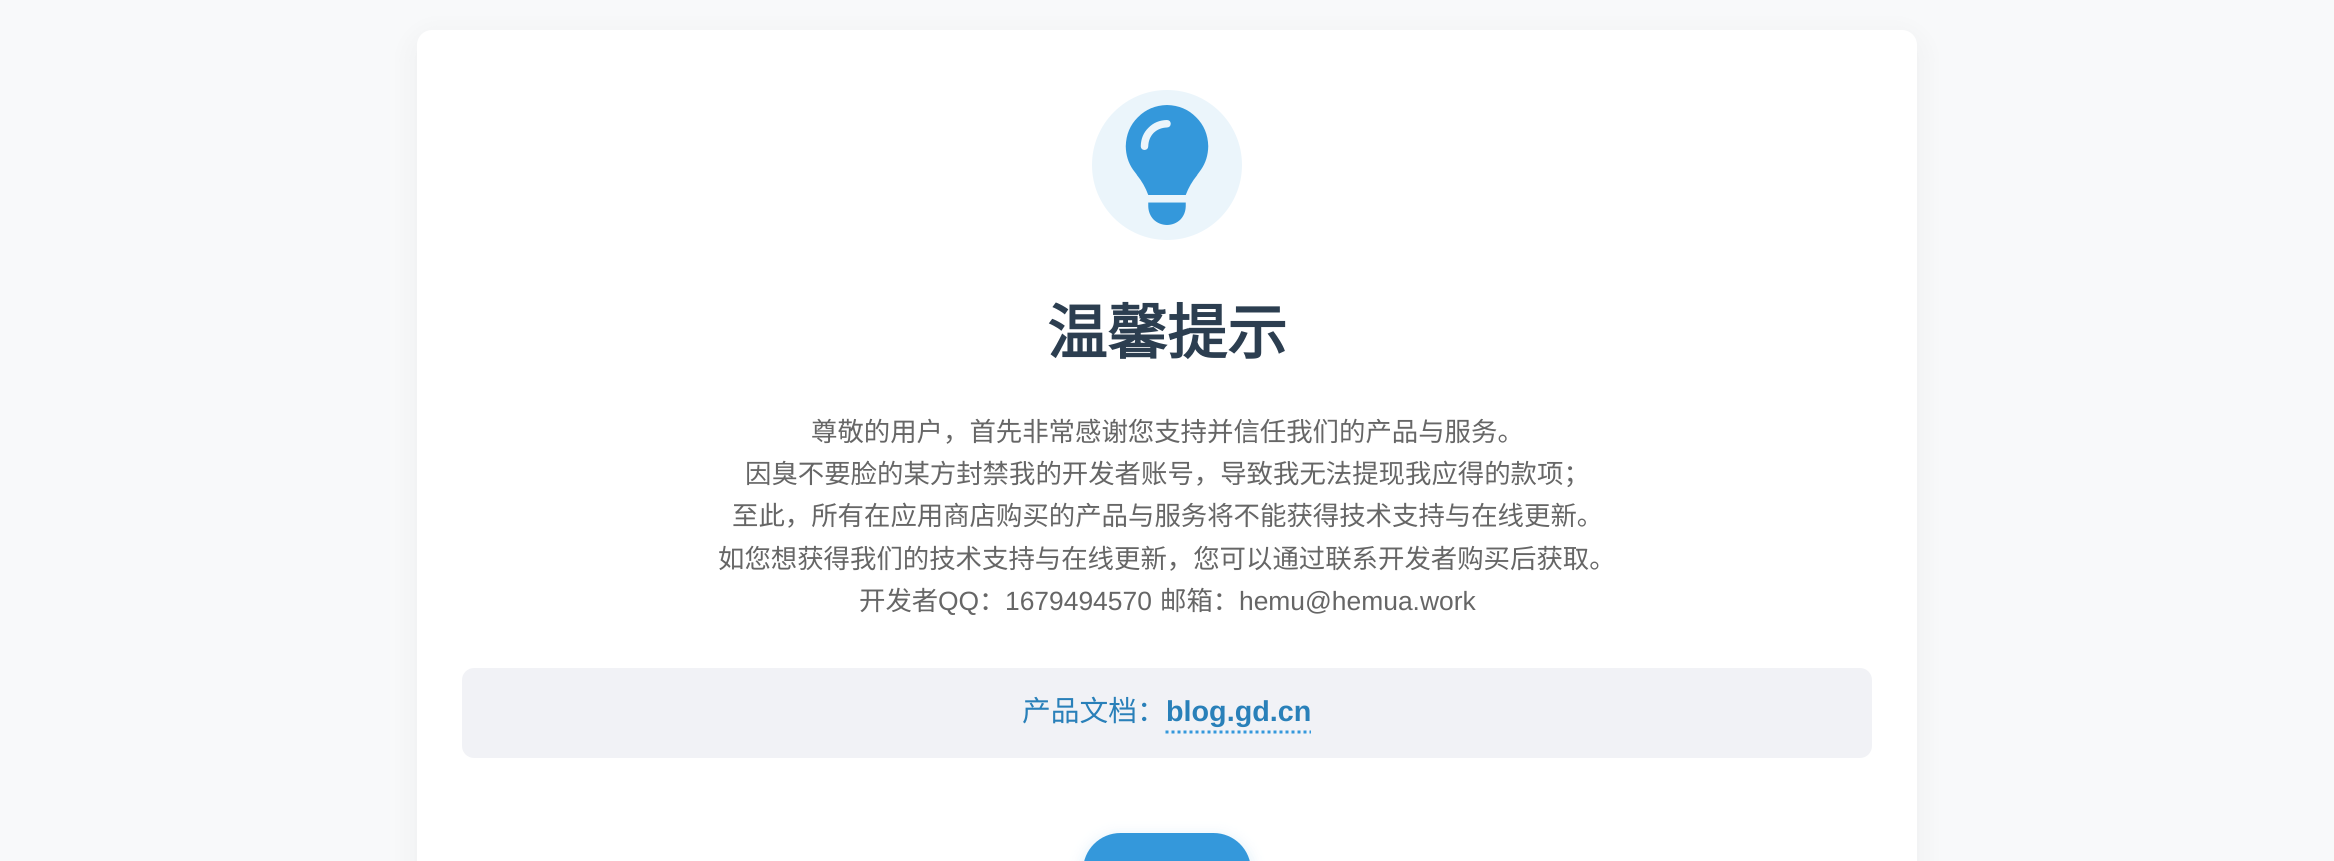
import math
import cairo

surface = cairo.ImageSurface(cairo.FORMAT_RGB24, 2334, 861)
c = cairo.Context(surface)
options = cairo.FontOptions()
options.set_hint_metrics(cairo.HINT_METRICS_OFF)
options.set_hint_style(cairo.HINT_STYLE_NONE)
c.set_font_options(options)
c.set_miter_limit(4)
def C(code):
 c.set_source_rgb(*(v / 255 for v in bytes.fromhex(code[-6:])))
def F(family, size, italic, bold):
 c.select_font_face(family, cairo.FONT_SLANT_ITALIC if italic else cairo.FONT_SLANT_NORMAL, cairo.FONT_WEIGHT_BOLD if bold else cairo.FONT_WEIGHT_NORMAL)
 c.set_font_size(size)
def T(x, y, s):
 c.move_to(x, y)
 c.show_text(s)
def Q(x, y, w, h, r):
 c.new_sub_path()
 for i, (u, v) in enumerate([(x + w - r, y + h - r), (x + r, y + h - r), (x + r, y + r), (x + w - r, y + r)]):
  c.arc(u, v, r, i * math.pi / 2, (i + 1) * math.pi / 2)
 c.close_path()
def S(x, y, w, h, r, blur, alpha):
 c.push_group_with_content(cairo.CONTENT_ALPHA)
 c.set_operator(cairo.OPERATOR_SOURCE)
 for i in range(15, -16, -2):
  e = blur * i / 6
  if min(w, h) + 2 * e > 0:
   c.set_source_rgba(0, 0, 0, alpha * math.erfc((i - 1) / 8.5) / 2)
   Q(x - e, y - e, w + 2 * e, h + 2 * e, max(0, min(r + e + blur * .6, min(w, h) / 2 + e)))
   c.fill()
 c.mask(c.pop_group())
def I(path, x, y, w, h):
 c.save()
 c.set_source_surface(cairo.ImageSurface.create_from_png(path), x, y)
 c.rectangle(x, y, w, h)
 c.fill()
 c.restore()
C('f8f9fa')
c.paint()
C('000000')
S(417,38,1500,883,15,15,.05)
C('ffffff')
Q(417,30,1500,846,15)
c.fill()
C('ebf5fb')
c.arc(1167,165,75,0,2 * math.pi)
c.fill()
I('1.png',1125,105,84,120)
F('Noto Sans CJK SC',60,0,1)
C('2c3e50')
T(1047,354,'温馨提示')
F('Noto Sans CJK SC',26.4,0,0)
C('666666')
T(811,441,'尊敬的用户，首先非常感谢您支持并信任我们的产品与服务。')
T(745,483,'因臭不要脸的某方封禁我的开发者账号，导致我无法提现我应得的款项；')
T(732,525,'至此，所有在应用商店购买的产品与服务将不能获得技术支持与在线更新。')
T(718,568,'如您想获得我们的技术支持与在线更新，您可以通过联系开发者购买后获取。')
T(859,610,'开发者')
F('Liberation Sans',26.4,0,0)
T(938,610,'QQ')
F('Noto Sans CJK SC',26.4,0,0)
T(979,610,'：')
F('Liberation Sans',26.4,0,0)
T(1005,610,'1679494570')
F('Noto Sans CJK SC',26.4,0,0)
T(1160,610,'邮箱：')
F('Liberation Sans',26.4,0,0)
T(1239,610,'hemu@hemua.work')
C('f1f2f6')
Q(462,668,1410,90,12)
c.fill()
F('Noto Sans CJK SC',28.75,0,0)
C('2980b9')
T(1022,721,'产品文档：')
F('Liberation Sans',28.75,0,1)
T(1166,721,'blog.gd.cn')
c.new_path()
c.move_to(1165.5,732)
c.line_to(1311,732)
C('3498db')
c.set_line_width(3)
c.set_dash([3,3])
c.stroke()
C('3498db')
S(1083,837,168,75,37.5,7.5,.2)
C('3498db')
Q(1083,833,168,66,37.5)
c.fill()
surface.write_to_png('o.png')
